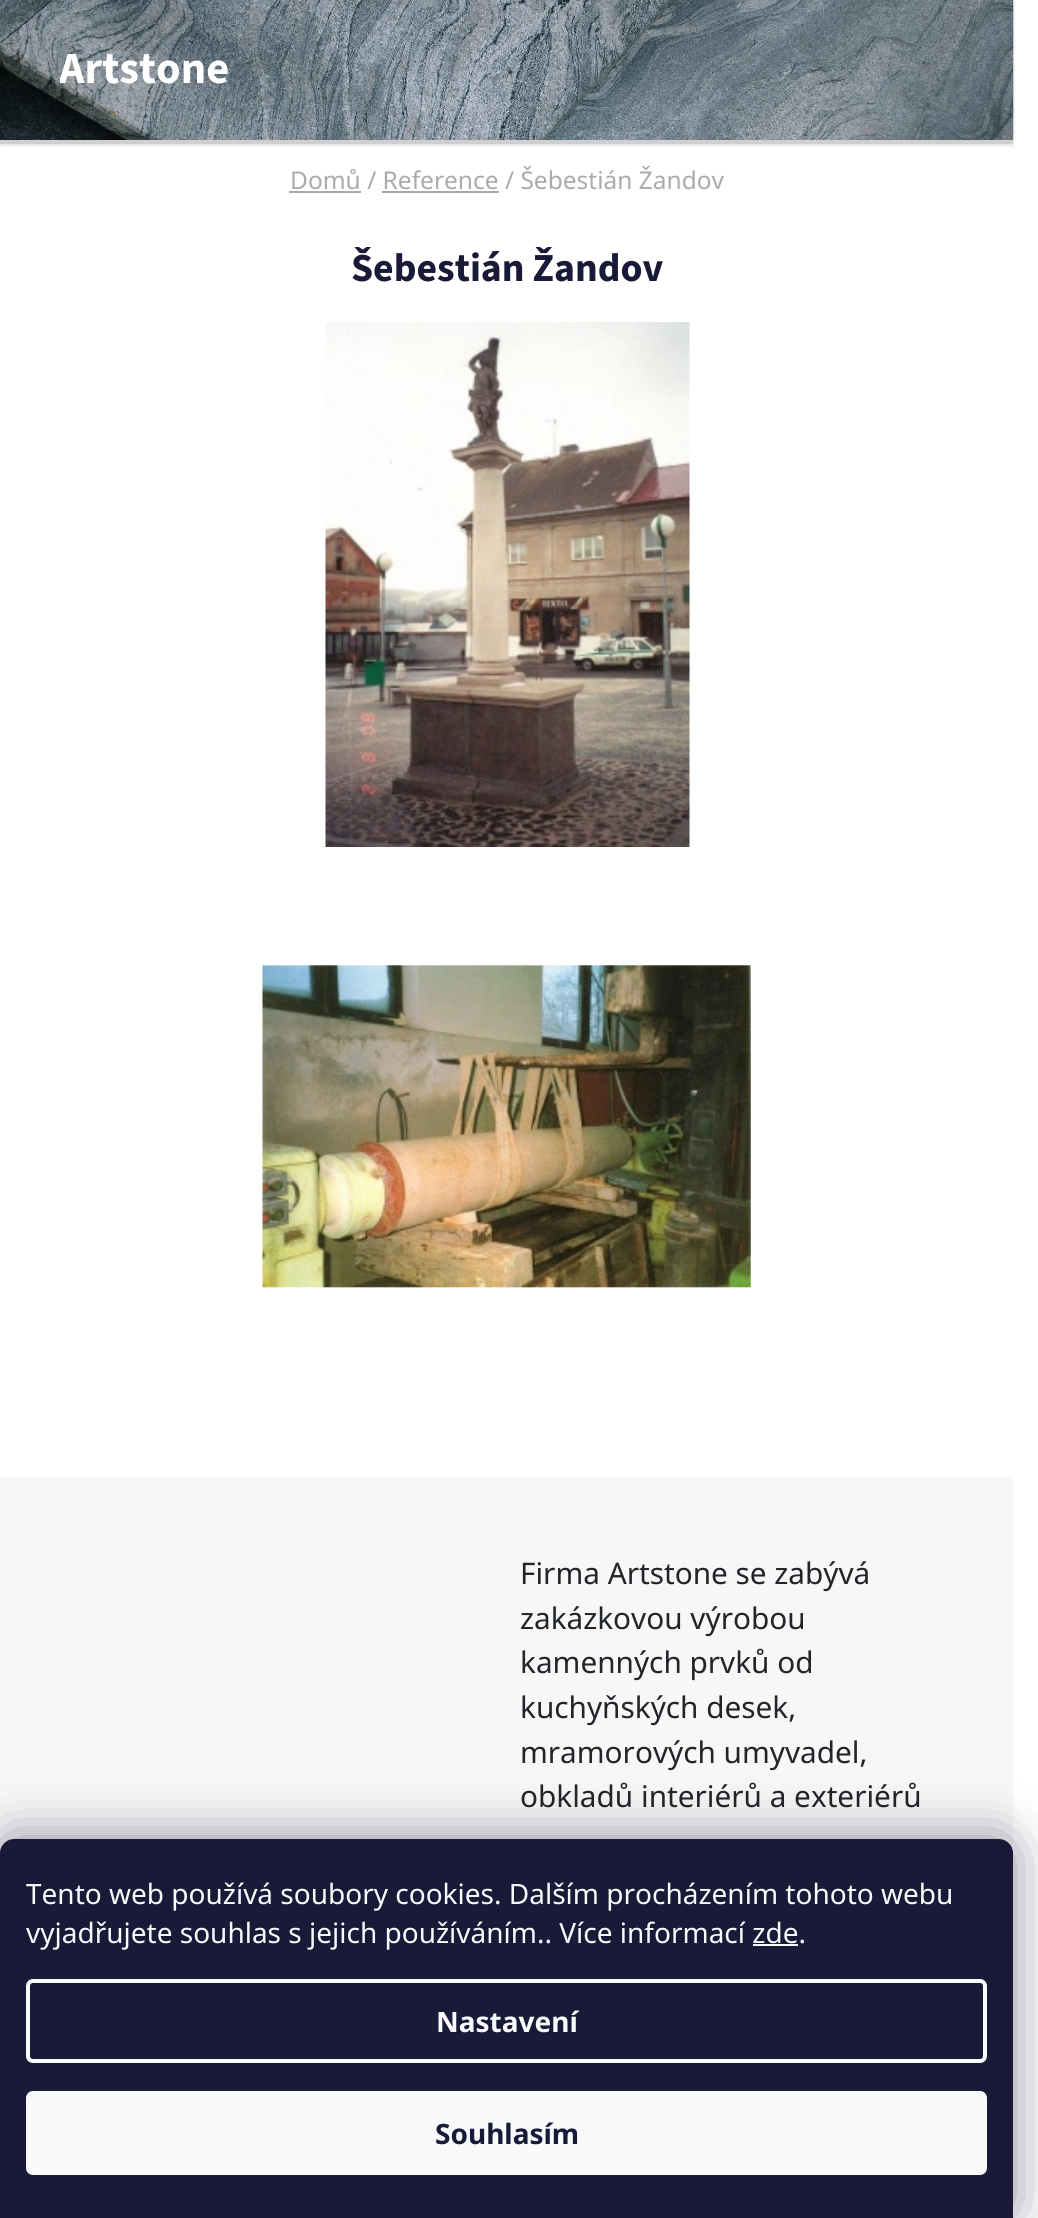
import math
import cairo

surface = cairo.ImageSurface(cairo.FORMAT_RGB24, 1038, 2218)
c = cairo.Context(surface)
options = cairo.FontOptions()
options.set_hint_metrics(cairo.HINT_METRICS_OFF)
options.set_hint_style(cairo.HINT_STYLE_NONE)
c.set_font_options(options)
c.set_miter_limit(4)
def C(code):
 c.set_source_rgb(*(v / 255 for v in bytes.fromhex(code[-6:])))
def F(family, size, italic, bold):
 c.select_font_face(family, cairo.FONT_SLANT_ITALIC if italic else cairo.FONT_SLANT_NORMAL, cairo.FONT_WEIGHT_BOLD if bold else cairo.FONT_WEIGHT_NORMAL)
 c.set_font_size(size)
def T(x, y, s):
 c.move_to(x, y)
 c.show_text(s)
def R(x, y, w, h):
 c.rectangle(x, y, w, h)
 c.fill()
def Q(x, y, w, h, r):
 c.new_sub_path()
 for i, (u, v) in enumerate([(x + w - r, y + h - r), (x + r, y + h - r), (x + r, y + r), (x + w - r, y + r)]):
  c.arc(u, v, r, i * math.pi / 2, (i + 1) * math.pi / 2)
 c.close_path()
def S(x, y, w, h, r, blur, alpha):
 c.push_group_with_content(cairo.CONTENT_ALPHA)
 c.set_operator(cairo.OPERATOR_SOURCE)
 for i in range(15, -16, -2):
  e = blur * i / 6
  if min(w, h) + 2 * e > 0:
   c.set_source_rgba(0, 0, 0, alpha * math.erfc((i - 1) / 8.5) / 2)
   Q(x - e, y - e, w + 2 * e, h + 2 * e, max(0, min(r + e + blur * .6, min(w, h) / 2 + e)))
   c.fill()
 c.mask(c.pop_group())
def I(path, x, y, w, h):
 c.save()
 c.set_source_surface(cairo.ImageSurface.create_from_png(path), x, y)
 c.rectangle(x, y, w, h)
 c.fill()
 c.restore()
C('ffffff')
c.paint()
C('000000')
S(0,2,1013,143,0,2,.16)
I('1.png',0,0,1014,140)
c.save()
c.rectangle(60,47,169,46)
c.clip()
F('Source Sans 3',44.5,0,1)
C('ffffff')
T(59,83,'Artstone')
c.restore()
C('cfcfcf')
R(0,140,1013,4)
F('Noto Sans',24.5,0,0)
C('aaaaaa')
T(290,189,'Domů / Reference / Šebestián Žandov')
R(289,191,72,2)
R(382,191,117,2)
F('Source Sans 3',39.75,0,1)
C('1a1937')
T(351,281,'Šebestián Žandov')
I('2.png',325,322,365,525)
I('3.png',262,965,489,323)
C('f7f7f7')
R(0,1477,1013,376)
F('Noto Sans',29.75,0,0)
C('212529')
T(520,1584,'Firma Artstone se zabývá')
T(520,1629,'zakázkovou výrobou')
T(520,1673,'kamenných prvků od')
T(520,1718,'kuchyňských desek,')
T(520,1763,'mramorových umyvadel,')
T(520,1807,'obkladů interiérů a exteriérů')
C('1b1939')
S(0,1839,1013,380,14,26,.5)
C('1a1937')
c.new_path()
c.move_to(14,1839)
c.line_to(999,1839)
c.curve_to(1006.5,1839,1013,1845.5,1013,1853)
c.line_to(1013,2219)
c.line_to(0,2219)
c.line_to(0,1853)
c.curve_to(0,1845.5,6.5,1839,14,1839)
c.close_path()
c.fill()
F('Noto Sans',28,0,0)
C('f8fafb')
T(26,1904,'Tento web používá soubory cookies. Dalším procházením tohoto webu')
T(26,1943,'vyjadřujete souhlas s jejich používáním.. Více informací zde.')
R(753,1944,45,2)
Q(28,1981,957,80,5)
c.set_line_width(4)
c.stroke()
F('Noto Sans',28,0,1)
T(436,2032,'Nastavení')
Q(26,2091,961,84,7)
c.fill()
C('1a1937')
T(435,2144,'Souhlasím')
surface.write_to_png('o.png')
